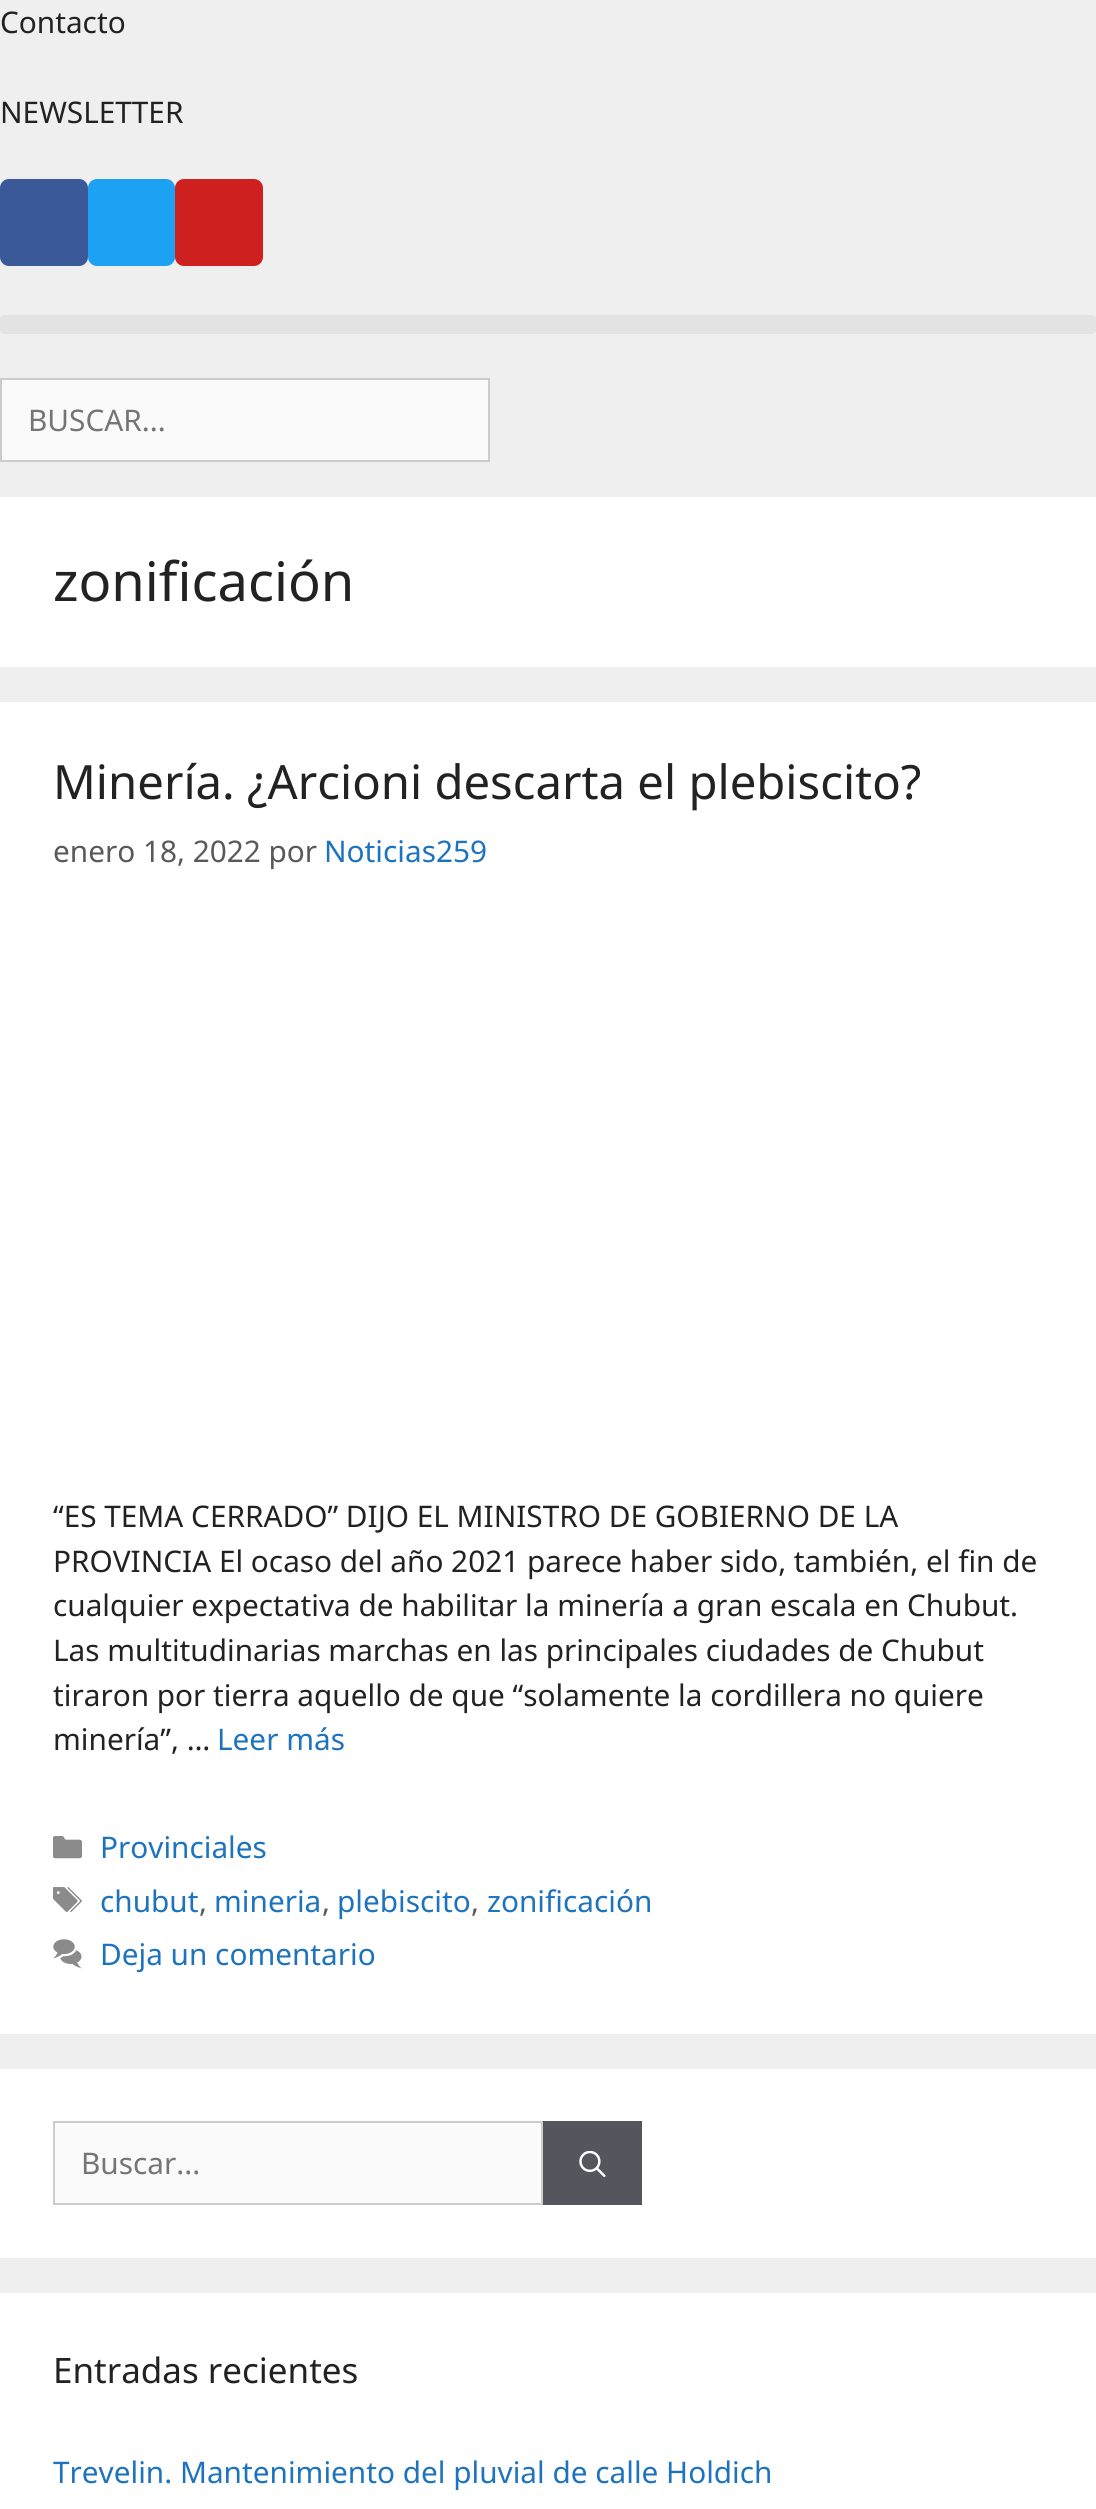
import math
import cairo

surface = cairo.ImageSurface(cairo.FORMAT_RGB24, 1096, 2509)
c = cairo.Context(surface)
options = cairo.FontOptions()
options.set_hint_metrics(cairo.HINT_METRICS_OFF)
options.set_hint_style(cairo.HINT_STYLE_NONE)
c.set_font_options(options)
c.set_miter_limit(4)
def C(code):
 c.set_source_rgb(*(v / 255 for v in bytes.fromhex(code[-6:])))
def F(family, size, italic, bold):
 c.select_font_face(family, cairo.FONT_SLANT_ITALIC if italic else cairo.FONT_SLANT_NORMAL, cairo.FONT_WEIGHT_BOLD if bold else cairo.FONT_WEIGHT_NORMAL)
 c.set_font_size(size)
def T(x, y, s):
 c.move_to(x, y)
 c.show_text(s)
def R(x, y, w, h):
 c.rectangle(x, y, w, h)
 c.fill()
def Q(x, y, w, h, r):
 c.new_sub_path()
 for i, (u, v) in enumerate([(x + w - r, y + h - r), (x + r, y + h - r), (x + r, y + r), (x + w - r, y + r)]):
  c.arc(u, v, r, i * math.pi / 2, (i + 1) * math.pi / 2)
 c.close_path()
def I(path, x, y, w, h):
 c.save()
 c.set_source_surface(cairo.ImageSurface.create_from_png(path), x, y)
 c.rectangle(x, y, w, h)
 c.fill()
 c.restore()
C('efefef')
c.paint()
F('Noto Sans',29.75,0,0)
C('222222')
T(0,33,'Contacto')
T(0,123,'NEWSLETTER')
C('3b5998')
Q(0,179,88,87,9)
c.fill()
C('1da1f2')
Q(88,179,87,87,9)
c.fill()
C('cd201f')
Q(175,179,88,87,9)
c.fill()
C('e3e3e3')
Q(0,315,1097,19,5)
c.fill()
C('fafafa')
c.rectangle(1,379,488,82)
c.fill_preserve()
C('cccccc')
c.stroke()
C('757575')
T(28,431,'BUSCAR...')
C('ffffff')
R(0,497,1096,170)
F('Noto Sans',54.25,0,0)
C('222222')
T(53,601,'zonificación')
C('ffffff')
R(0,702,1096,1332)
F('Noto Sans',47.25,0,0)
C('222222')
T(53,799,'Minería. ¿Arcioni descarta el plebiscito?')
F('Noto Sans',29.75,0,0)
C('595959')
T(53,862,'enero 18, 2022 por')
C('1e73be')
T(324,862,'Noticias259')
C('222222')
T(53,1527,'“ES TEMA CERRADO” DIJO EL MINISTRO DE GOBIERNO DE LA')
T(53,1572,'PROVINCIA El ocaso del año 2021 parece haber sido, también, el fin de')
T(53,1616,'cualquier expectativa de habilitar la minería a gran escala en Chubut.')
T(53,1661,'Las multitudinarias marchas en las principales ciudades de Chubut')
T(53,1706,'tiraron por tierra aquello de que “solamente la cordillera no quiere')
T(53,1750,'minería”, …')
C('1e73be')
T(217,1750,'Leer más')
I('1.png',53,1836,29,23)
T(100,1858,'Provinciales')
I('2.png',53,1887,29,26)
T(100,1912,'chubut')
C('595959')
T(199,1912,',')
C('1e73be')
T(214,1912,'mineria')
C('595959')
T(322,1912,',')
C('1e73be')
T(337,1912,'plebiscito')
C('595959')
T(471,1912,',')
C('1e73be')
T(487,1912,'zonificación')
I('3.png',53,1939,29,30)
T(100,1965,'Deja un comentario')
C('ffffff')
R(0,2069,1096,189)
C('fafafa')
c.rectangle(54,2122,488,82)
c.fill_preserve()
C('cccccc')
c.stroke()
C('757575')
T(81,2174,'Buscar...')
C('55555e')
R(543,2121,99,84)
I('4.png',579,2151,27,26)
C('ffffff')
R(0,2293,1096,216)
F('Noto Sans',35,0,0)
C('222222')
T(53,2383,'Entradas recientes')
F('Noto Sans',29.75,0,0)
C('1e73be')
T(53,2483,'Trevelin. Mantenimiento del pluvial de calle Holdich')
surface.write_to_png('o.png')
